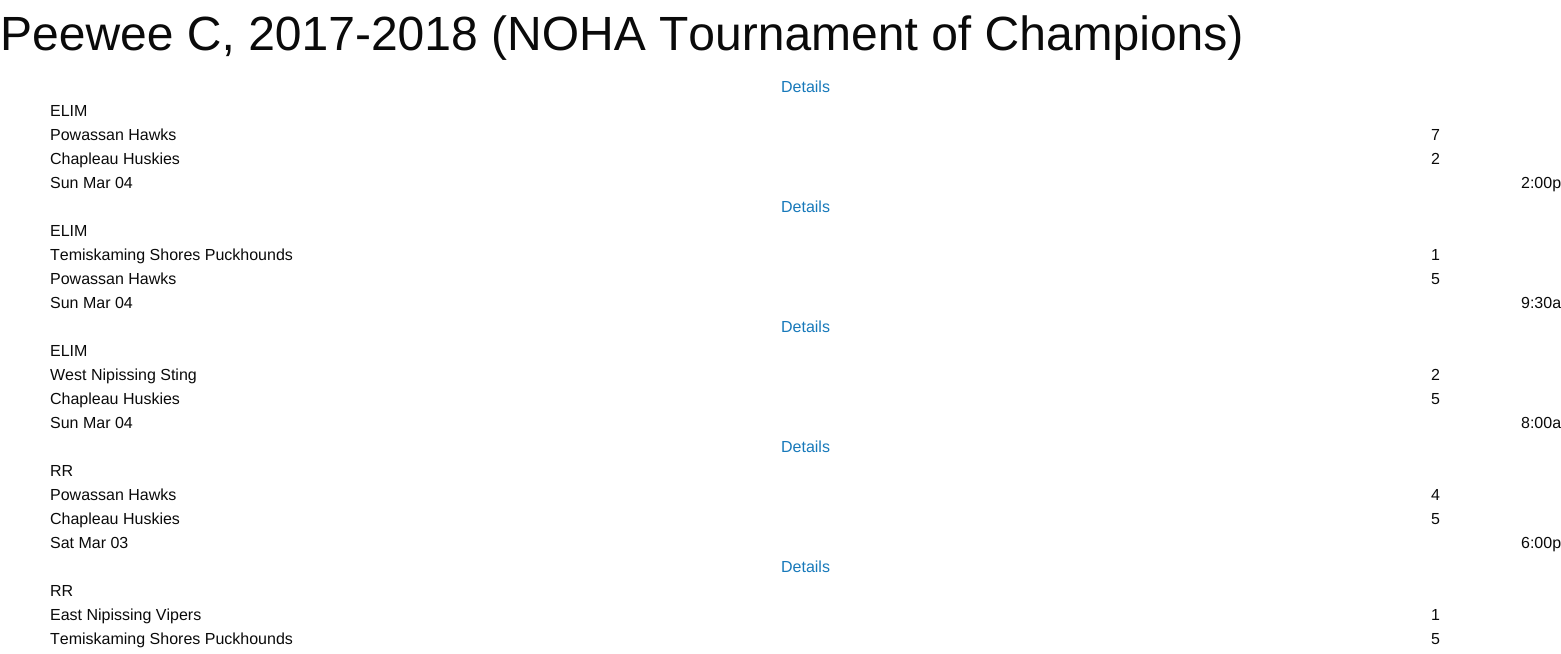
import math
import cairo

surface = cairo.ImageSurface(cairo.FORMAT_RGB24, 1561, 654)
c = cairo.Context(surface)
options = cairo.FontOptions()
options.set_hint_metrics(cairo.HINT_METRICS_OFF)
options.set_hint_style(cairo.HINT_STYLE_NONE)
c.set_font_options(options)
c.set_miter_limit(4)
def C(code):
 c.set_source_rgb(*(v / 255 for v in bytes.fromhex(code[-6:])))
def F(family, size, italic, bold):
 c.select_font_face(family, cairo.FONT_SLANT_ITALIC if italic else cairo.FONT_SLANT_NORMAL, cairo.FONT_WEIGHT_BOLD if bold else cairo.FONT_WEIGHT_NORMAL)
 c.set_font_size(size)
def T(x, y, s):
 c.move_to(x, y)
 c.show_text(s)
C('ffffff')
c.paint()
F('Liberation Sans',48,0,0)
C('0a0a0a')
T(0,50,'Peewee C, 2017-2018 (NOHA Tournament of Champions)')
F('Liberation Sans',16,0,0)
C('1779ba')
T(781,92,'Details')
C('0a0a0a')
T(50,116,'ELIM')
T(50,140,'Powassan Hawks')
T(1431,140,'7')
T(50,164,'Chapleau Huskies')
T(1431,164,'2')
T(50,188,'Sun Mar 04')
T(1521,188,'2:00p')
C('1779ba')
T(781,212,'Details')
C('0a0a0a')
T(50,236,'ELIM')
T(50,260,'Temiskaming Shores Puckhounds')
T(1431,260,'1')
T(50,284,'Powassan Hawks')
T(1431,284,'5')
T(50,308,'Sun Mar 04')
T(1521,308,'9:30a')
C('1779ba')
T(781,332,'Details')
C('0a0a0a')
T(50,356,'ELIM')
T(50,380,'West Nipissing Sting')
T(1431,380,'2')
T(50,404,'Chapleau Huskies')
T(1431,404,'5')
T(50,428,'Sun Mar 04')
T(1521,428,'8:00a')
C('1779ba')
T(781,452,'Details')
C('0a0a0a')
T(50,476,'RR')
T(50,500,'Powassan Hawks')
T(1431,500,'4')
T(50,524,'Chapleau Huskies')
T(1431,524,'5')
T(50,548,'Sat Mar 03')
T(1521,548,'6:00p')
C('1779ba')
T(781,572,'Details')
C('0a0a0a')
T(50,596,'RR')
T(50,620,'East Nipissing Vipers')
T(1431,620,'1')
T(50,644,'Temiskaming Shores Puckhounds')
T(1431,644,'5')
surface.write_to_png('o.png')
